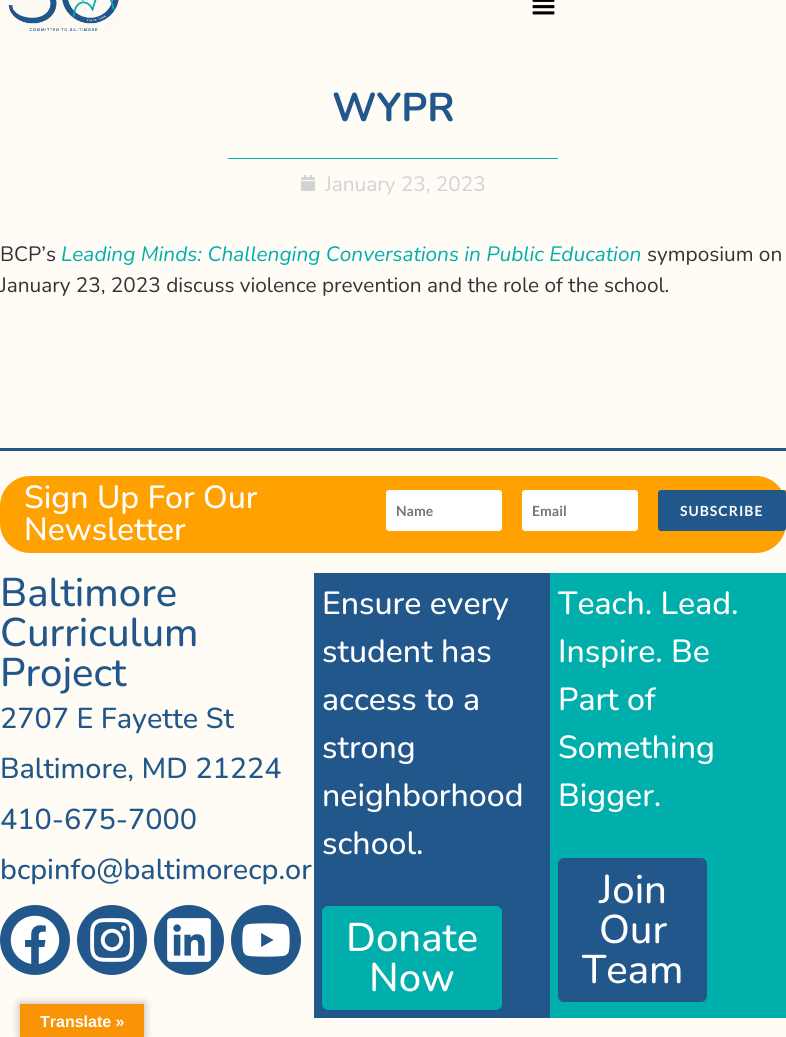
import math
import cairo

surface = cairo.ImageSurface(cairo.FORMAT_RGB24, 786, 1037)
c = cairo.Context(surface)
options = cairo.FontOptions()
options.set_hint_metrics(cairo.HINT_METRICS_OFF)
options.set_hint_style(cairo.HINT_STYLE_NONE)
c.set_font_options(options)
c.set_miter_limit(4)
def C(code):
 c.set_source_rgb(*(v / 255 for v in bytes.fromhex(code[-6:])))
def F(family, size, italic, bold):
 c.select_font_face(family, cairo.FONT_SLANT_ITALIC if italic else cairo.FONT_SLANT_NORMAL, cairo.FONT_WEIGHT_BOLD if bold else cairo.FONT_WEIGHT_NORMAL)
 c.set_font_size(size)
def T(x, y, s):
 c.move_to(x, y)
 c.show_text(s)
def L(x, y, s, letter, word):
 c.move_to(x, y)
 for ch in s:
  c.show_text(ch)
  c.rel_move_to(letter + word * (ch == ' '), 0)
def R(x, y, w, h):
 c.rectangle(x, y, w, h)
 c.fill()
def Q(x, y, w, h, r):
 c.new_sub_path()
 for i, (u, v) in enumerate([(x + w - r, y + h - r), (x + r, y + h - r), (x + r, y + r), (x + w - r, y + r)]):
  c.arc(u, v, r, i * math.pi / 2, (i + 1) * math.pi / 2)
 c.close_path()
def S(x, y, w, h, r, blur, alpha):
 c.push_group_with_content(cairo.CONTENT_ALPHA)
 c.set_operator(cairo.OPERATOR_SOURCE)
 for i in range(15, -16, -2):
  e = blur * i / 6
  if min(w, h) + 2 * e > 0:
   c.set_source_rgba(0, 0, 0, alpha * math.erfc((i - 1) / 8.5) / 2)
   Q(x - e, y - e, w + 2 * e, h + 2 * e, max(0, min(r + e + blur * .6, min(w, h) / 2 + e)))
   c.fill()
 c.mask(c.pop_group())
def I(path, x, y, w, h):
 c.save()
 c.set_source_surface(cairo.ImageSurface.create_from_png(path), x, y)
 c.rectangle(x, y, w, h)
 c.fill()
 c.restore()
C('fffbf5')
c.paint()
I('1.png',8,0,111,31)
I('2.png',532,0,23,15)
F('Nunito',40,0,1)
C('21578a')
T(332,121,'WYPR')
C('00afab')
R(228,158,330,1)
I('3.png',301,175,14,16)
F('Nunito',20.8,0,0)
C('d1d4d3')
T(325,191,'January 23, 2023')
C('333333')
T(0,261,'BCP’s')
F('Nunito',20.8,1,0)
C('00afab')
T(61,261,'Leading Minds: Challenging Conversations in Public Education')
F('Nunito',20.8,0,0)
C('333333')
T(647,261,'symposium on')
T(0,292,'January 23, 2023 discuss violence prevention and the role of the school.')
C('21578a')
R(0,448,786,3)
C('ffa100')
Q(0,476,786,77,30)
c.fill()
F('Nunito Medium',32,0,0)
C('ffffff')
T(24,508,'Sign Up For Our')
T(24,540,'Newsletter')
C('ffa100')
c.new_path()
c.move_to(386,490)
c.line_to(786,490)
c.line_to(786,526)
c.curve_to(786,529,784,531,781,531)
c.line_to(391,531)
c.curve_to(388,531,386,529,386,526)
c.close_path()
c.fill()
C('ffffff')
Q(386,490,116,41,3)
c.fill()
F('Lato',14,0,1)
C('757575')
T(396,516,'Name')
C('ffffff')
Q(522,490,116,41,3)
c.fill()
C('757575')
T(532,516,'Email')
C('21578a')
Q(658,490,128,41,3)
c.fill()
C('ffffff')
L(680,516,'SUBSCRIBE',1,0)
F('Nunito Medium',40,0,0)
C('21578a')
T(0,606,'Baltimore')
T(0,646,'Curriculum')
T(0,686,'Project')
F('Nunito Medium',28.75,0,0)
T(0,728,'2707 E Fayette St')
T(0,778,'Baltimore, MD 21224')
T(0,829,'410-675-7000')
T(0,879,'bcpinfo@baltimorecp.or')
c.new_path()
c.arc(35,940,35,0,2 * math.pi)
c.fill()
I('4.png',10,915,50,49)
c.arc(112,940,35,0,2 * math.pi)
c.fill()
I('5.png',90,918,44,44)
c.arc(189,940,35,0,2 * math.pi)
c.fill()
I('6.png',167,918,44,44)
c.arc(266,940,35,0,2 * math.pi)
c.fill()
I('7.png',242,923,48,34)
R(314,573,236,445)
F('Nunito Medium',32,0,0)
C('ffffff')
T(322,614,'Ensure every')
T(322,662,'student has')
T(322,710,'access to a')
T(322,758,'strong')
T(322,806,'neighborhood')
T(322,854,'school.')
C('00afab')
Q(322,906,180,104,6)
c.fill()
F('Nunito Medium',40,0,0)
C('ffffff')
T(346,951,'Donate')
T(369,991,'Now')
C('00afab')
R(550,573,236,445)
F('Nunito Medium',32,0,0)
C('ffffff')
T(558,614,'Teach. Lead.')
T(558,662,'Inspire. Be')
T(558,710,'Part of')
T(558,758,'Something')
T(558,806,'Bigger.')
C('21578a')
Q(558,858,149,144,6)
c.fill()
F('Nunito Medium',40,0,0)
C('ffffff')
T(599,903,'Join')
T(599,943,'Our')
T(582,983,'Team')
C('000000')
S(20,1004,124,33,0,4.5,.3)
C('f89406')
R(20,1004,124,33)
F('Liberation Sans',16,0,1)
C('ffffff')
T(40,1027,'Translate »')
surface.write_to_png('o.png')
